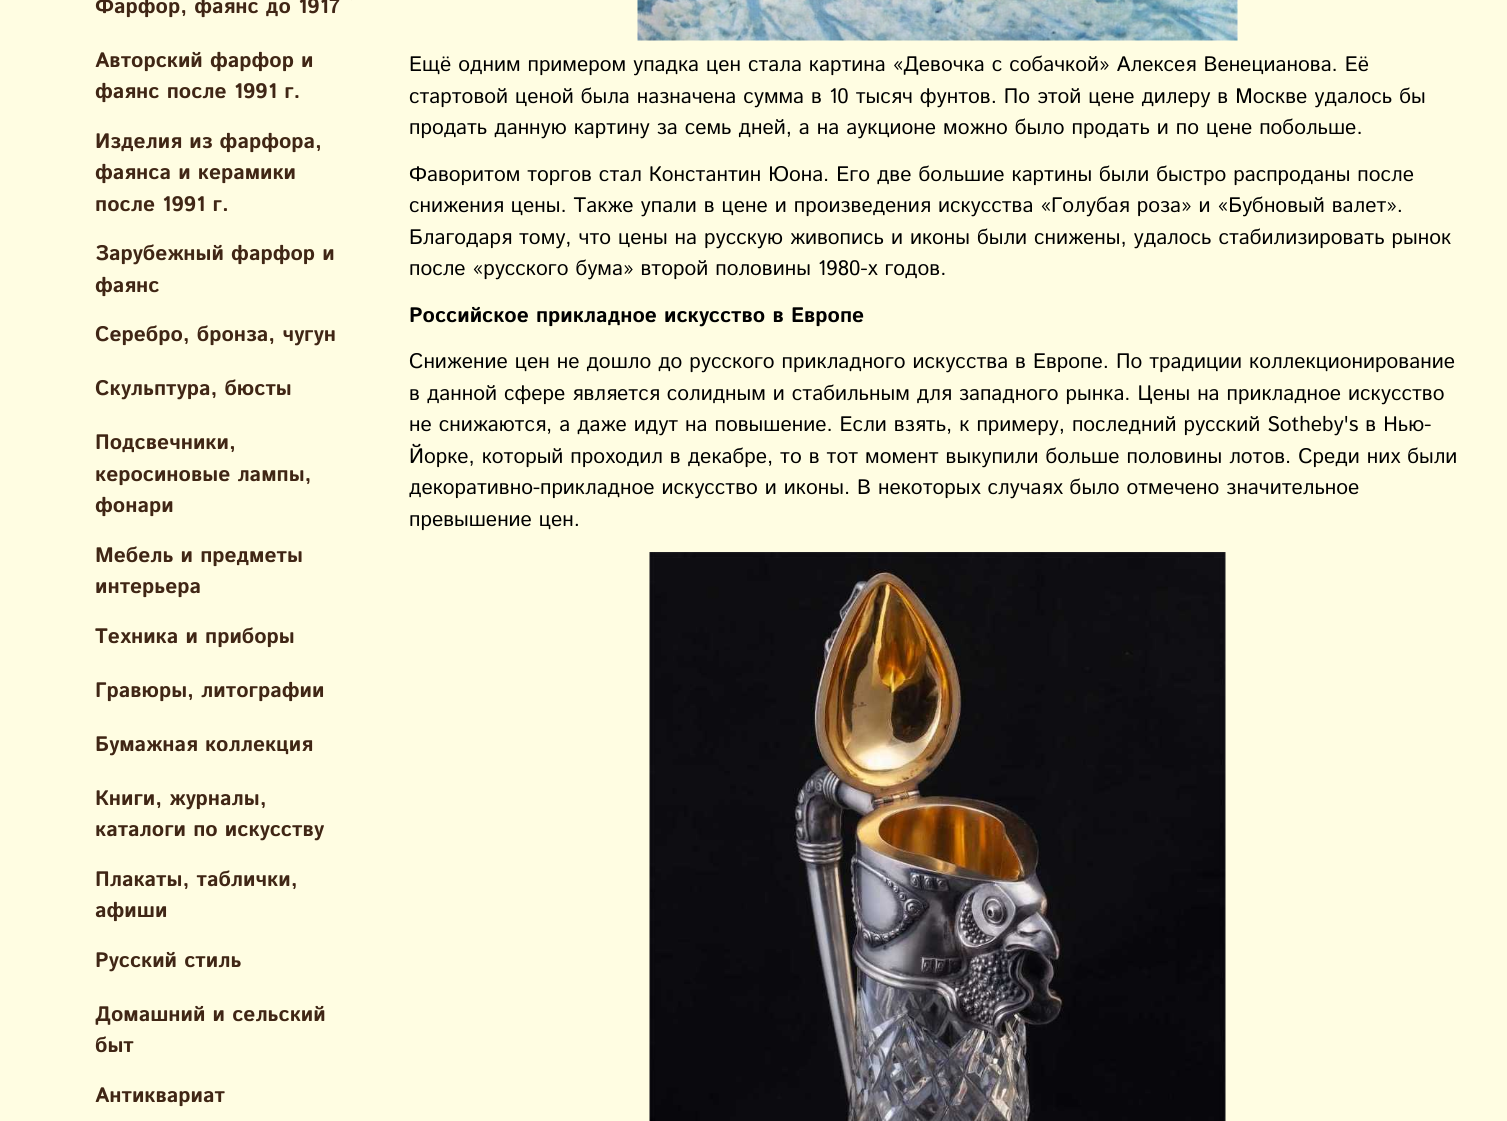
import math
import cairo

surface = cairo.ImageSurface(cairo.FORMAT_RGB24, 1507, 1121)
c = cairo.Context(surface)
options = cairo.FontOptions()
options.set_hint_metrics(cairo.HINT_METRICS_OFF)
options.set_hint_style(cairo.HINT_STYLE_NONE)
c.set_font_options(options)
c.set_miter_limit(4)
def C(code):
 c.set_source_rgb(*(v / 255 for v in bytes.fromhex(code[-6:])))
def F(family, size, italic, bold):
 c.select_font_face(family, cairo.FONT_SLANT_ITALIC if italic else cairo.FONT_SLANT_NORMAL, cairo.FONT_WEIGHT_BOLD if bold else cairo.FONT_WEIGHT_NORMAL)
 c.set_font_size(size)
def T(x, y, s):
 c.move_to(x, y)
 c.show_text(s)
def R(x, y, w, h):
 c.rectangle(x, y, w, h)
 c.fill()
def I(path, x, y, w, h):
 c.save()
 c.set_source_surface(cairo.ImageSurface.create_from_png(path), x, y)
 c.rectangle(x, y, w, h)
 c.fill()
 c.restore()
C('fffde2')
c.paint()
C('fbf8dd')
R(351,0,1,1)
F('Istok Web',21,0,1)
C('402615')
T(95,13,'Фарфор, фаянс до 1917')
T(95,67,'Авторский фарфор и')
T(95,98,'фаянс после 1991 г.')
T(95,148,'Изделия из фарфора,')
T(95,179,'фаянса и керамики')
T(95,211,'после 1991 г.')
T(95,260,'Зарубежный фарфор и')
T(95,292,'фаянс')
T(95,341,'Серебро, бронза, чугун')
T(95,395,'Скульптура, бюсты')
T(95,449,'Подсвечники,')
T(95,481,'керосиновые лампы,')
T(95,512,'фонари')
T(95,562,'Мебель и предметы')
T(95,593,'интерьера')
T(95,643,'Техника и приборы')
T(95,697,'Гравюры, литографии')
T(95,751,'Бумажная коллекция')
T(95,805,'Книги, журналы,')
T(95,836,'каталоги по искусcтву')
T(95,886,'Плакаты, таблички,')
T(95,917,'афиши')
T(95,967,'Русский стиль')
T(95,1021,'Домашний и сельский')
T(95,1052,'быт')
T(95,1102,'Антиквариат')
I('1.png',637,0,601,41)
F('Istok Web',21,0,0)
C('000000')
T(409,71,'Ещё одним примером упадка цен стала картина «Девочка с собачкой» Алексея Венецианова. Её')
T(409,103,'стартовой ценой была назначена сумма в 10 тысяч фунтов. По этой цене дилеру в Москве удалось бы')
T(409,134,'продать данную картину за семь дней, а на аукционе можно было продать и по цене побольше.')
T(409,181,'Фаворитом торгов стал Константин Юона. Его две большие картины были быстро распроданы после')
T(409,212,'снижения цены. Также упали в цене и произведения искусства «Голубая роза» и «Бубновый валет».')
T(409,244,'Благодаря тому, что цены на русскую живопись и иконы были снижены, удалось стабилизировать рынок')
T(409,275,'после «русского бума» второй половины 1980-х годов.')
F('Istok Web',21,0,1)
T(409,322,'Российское прикладное искусство в Европе')
F('Istok Web',21,0,0)
T(409,368,'Снижение цен не дошло до русского прикладного искусства в Европе. По традиции коллекционирование')
T(409,400,'в данной сфере является солидным и стабильным для западного рынка. Цены на прикладное искусство')
T(409,431,'не снижаются, а даже идут на повышение. Если взять, к примеру, последний русский Sotheby\'s в Нью-')
T(409,463,'Йорке, который проходил в декабре, то в тот момент выкупили больше половины лотов. Среди них были')
T(409,494,'декоративно-прикладное искусство и иконы. В некоторых случаях было отмечено значительное')
T(409,526,'превышение цен.')
I('2.png',649,552,577,569)
surface.write_to_png('o.png')
